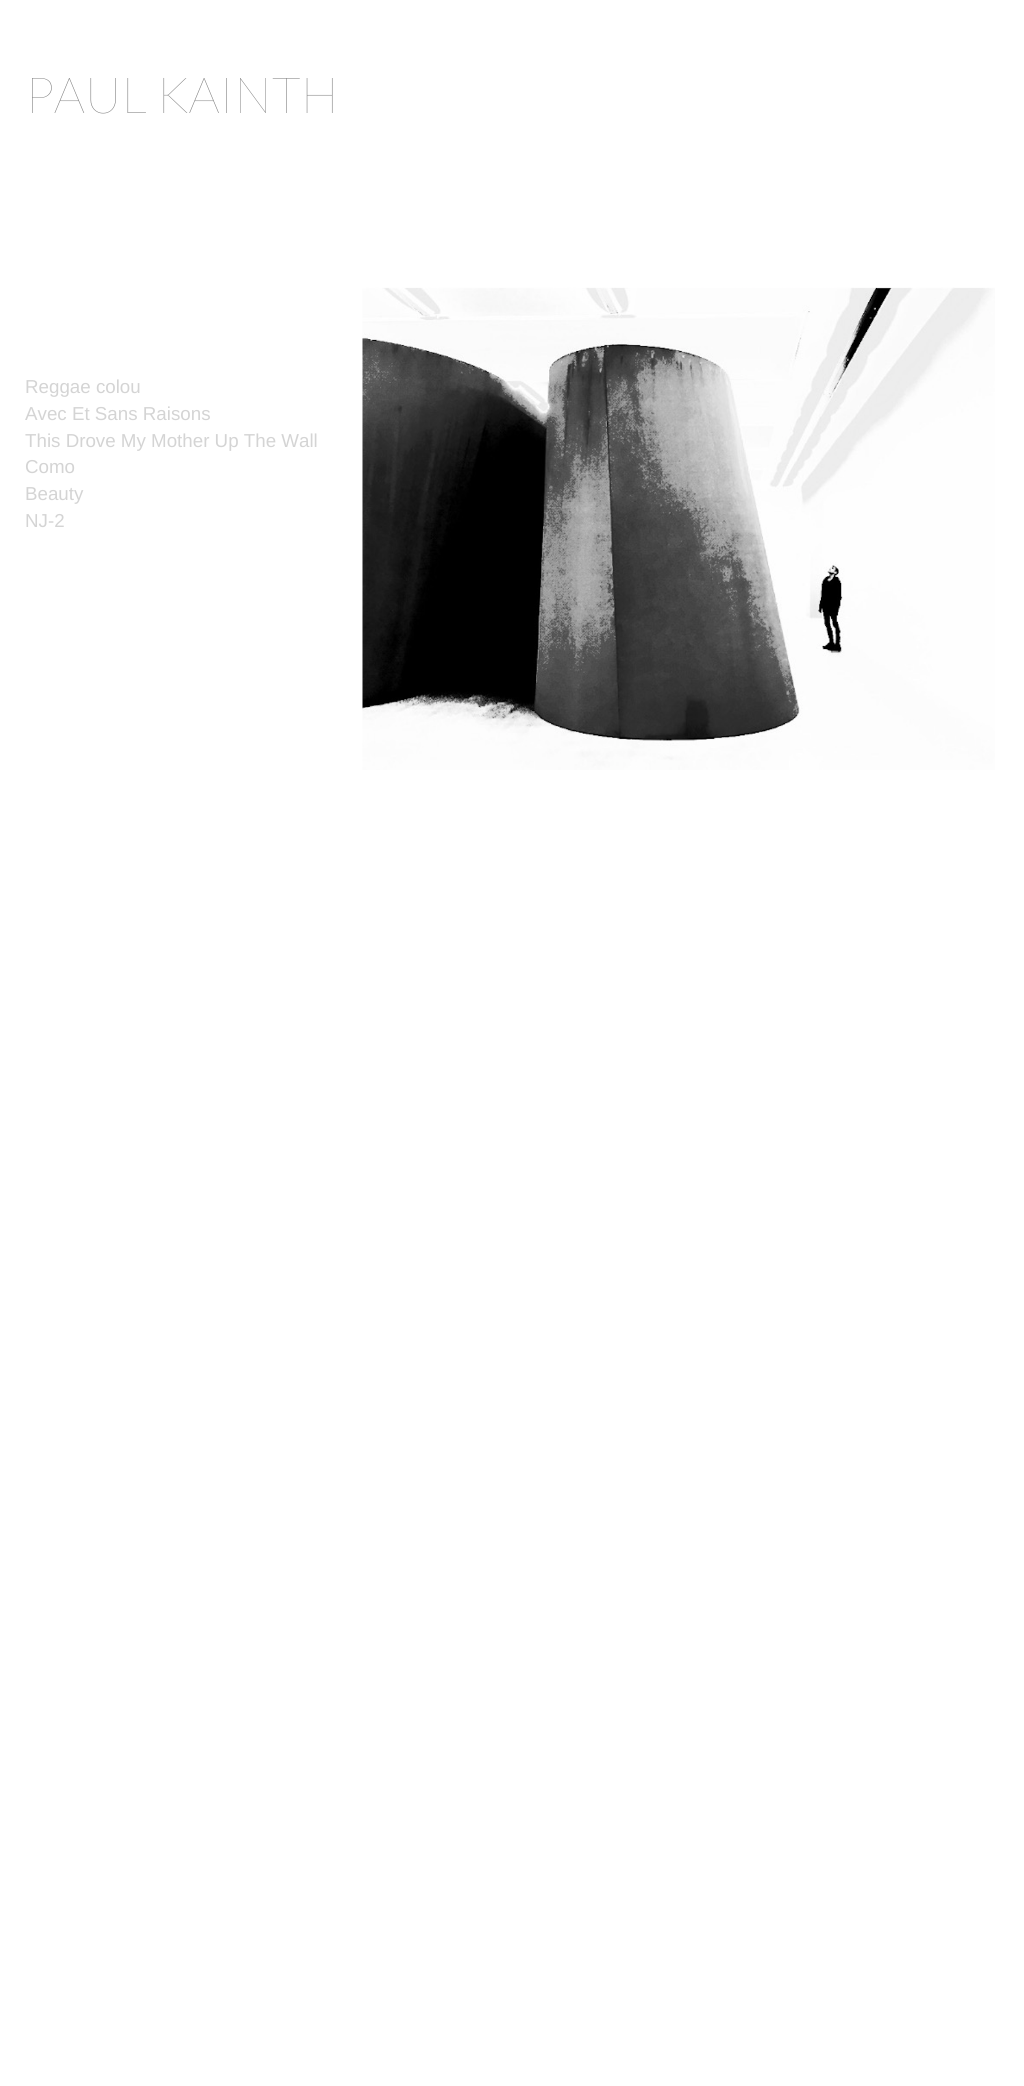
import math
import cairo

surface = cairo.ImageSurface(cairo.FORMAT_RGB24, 1024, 2086)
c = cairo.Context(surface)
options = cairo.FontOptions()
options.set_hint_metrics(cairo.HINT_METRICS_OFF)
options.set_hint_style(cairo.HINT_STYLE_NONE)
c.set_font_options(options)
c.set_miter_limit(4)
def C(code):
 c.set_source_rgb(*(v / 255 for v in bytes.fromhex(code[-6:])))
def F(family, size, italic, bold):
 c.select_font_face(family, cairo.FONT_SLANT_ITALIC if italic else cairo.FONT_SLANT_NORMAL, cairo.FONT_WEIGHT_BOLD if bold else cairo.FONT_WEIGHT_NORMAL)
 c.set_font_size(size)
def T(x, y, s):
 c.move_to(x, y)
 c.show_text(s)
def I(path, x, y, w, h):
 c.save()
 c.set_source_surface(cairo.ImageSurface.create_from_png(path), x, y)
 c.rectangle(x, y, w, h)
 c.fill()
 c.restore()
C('ffffff')
c.paint()
F('Lato Thin',50,0,0)
C('808080')
T(25,113,'PAUL KAINTH')
F('Liberation Sans',18.75,0,0)
C('d4d4d4')
T(25,393,'Reggae colou')
T(25,420,'Avec Et Sans Raisons')
T(25,447,'This Drove My Mother Up The Wall')
T(25,473,'Como')
T(25,500,'Beauty')
T(25,527,'NJ-2')
I('1.png',362,287,633,483)
surface.write_to_png('o.png')
